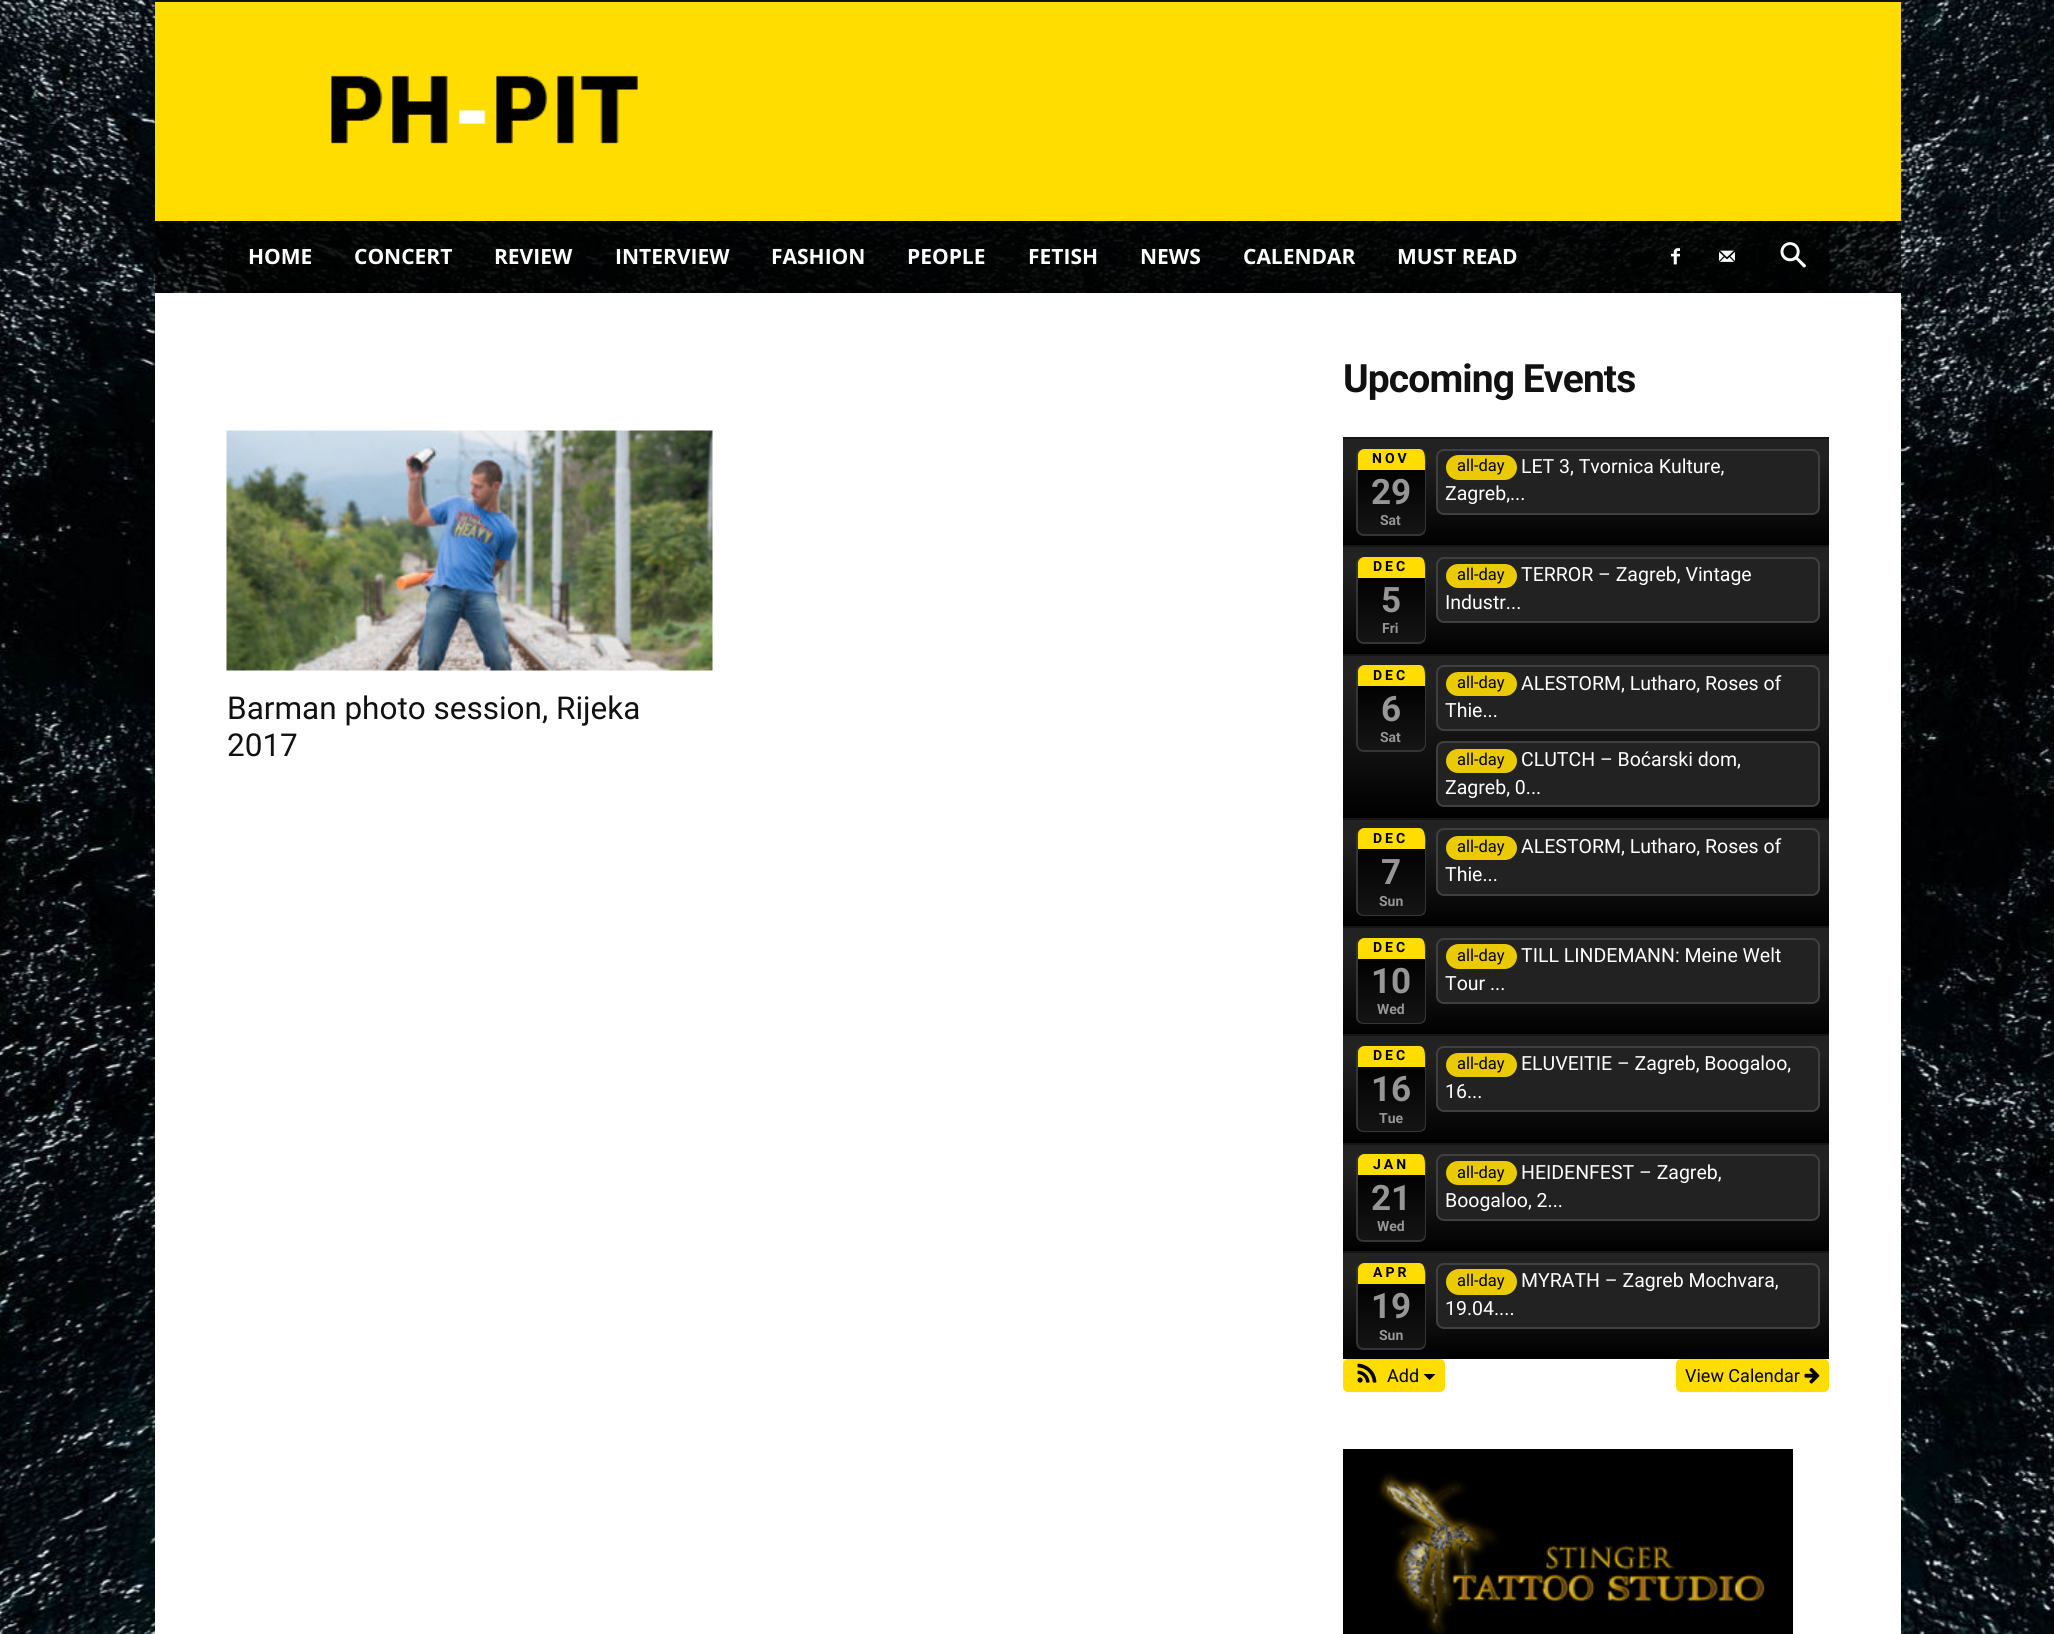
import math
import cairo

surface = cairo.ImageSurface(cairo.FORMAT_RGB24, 2054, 1634)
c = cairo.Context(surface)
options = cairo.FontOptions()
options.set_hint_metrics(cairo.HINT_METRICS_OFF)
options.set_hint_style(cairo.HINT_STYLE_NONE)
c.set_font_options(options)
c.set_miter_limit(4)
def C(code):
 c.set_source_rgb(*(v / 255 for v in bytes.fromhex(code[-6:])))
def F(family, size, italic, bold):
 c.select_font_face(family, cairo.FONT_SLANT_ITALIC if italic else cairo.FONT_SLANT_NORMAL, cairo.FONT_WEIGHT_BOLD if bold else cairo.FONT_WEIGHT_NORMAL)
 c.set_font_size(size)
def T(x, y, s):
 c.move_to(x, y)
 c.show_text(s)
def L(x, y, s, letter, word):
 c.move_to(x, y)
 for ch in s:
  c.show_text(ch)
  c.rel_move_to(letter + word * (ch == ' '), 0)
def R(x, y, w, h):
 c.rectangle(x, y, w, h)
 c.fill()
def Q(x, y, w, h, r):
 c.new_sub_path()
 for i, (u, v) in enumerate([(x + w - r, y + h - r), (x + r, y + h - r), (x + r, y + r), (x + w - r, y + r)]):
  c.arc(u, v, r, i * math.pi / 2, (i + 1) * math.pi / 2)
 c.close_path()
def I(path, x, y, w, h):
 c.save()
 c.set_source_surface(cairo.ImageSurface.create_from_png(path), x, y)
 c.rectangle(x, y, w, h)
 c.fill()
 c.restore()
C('ffffff')
c.paint()
I('1.png',0,0,2054,1634)
C('111111')
R(155,0,1746,2)
C('ffdd00')
R(155,2,1746,219)
I('2.png',331,75,307,69)
c.set_source_rgba(0,0,0,0.67)
R(155,221,1746,72)
R(227,221,1602,72)
F('Open Sans',21,0,1)
C('ffffff')
T(248,264,'HOME')
T(354,264,'CONCERT')
T(494,264,'REVIEW')
T(615,264,'INTERVIEW')
T(771,264,'FASHION')
T(907,264,'PEOPLE')
T(1028,264,'FETISH')
T(1140,264,'NEWS')
T(1243,264,'CALENDAR')
T(1397,264,'MUST READ')
I('3.png',1671,248,9,17)
I('4.png',1719,250,16,12)
I('5.png',1780,242,26,26)
R(155,293,1746,1341)
I('6.png',226,430,487,241)
F('Roboto',31.5,0,0)
C('111111')
T(227,719,'Barman photo session, Rijeka')
T(227,756,'2017')
F('Roboto',39,0,1)
L(1343,392,'Upcoming Events',-.9,0)
gradient = cairo.LinearGradient(1586,438,1586,545)
gradient.add_color_stop_rgba(0,0.133,0.133,0.133,1)
gradient.add_color_stop_rgba(.18,0.133,0.133,0.133,1)
gradient.add_color_stop_rgba(1,0,0,0,1)
c.set_source(gradient)
R(1343,439,486,106)
C('151515')
R(1343,437,486,2)
c.save()
Q(1356,449,71,87,8)
c.clip()
gradient = cairo.LinearGradient(1391,449,1391,534)
gradient.add_color_stop_rgba(0,0,0,0,1)
gradient.add_color_stop_rgba(.21,0,0,0,1)
gradient.add_color_stop_rgba(1,0.082,0.082,0.082,1)
c.set_source(gradient)
R(1358,449,67,85)
c.restore()
C('353535')
c.set_fill_rule(cairo.FILL_RULE_EVEN_ODD)
c.new_path()
c.move_to(1364,448)
c.line_to(1419,448)
c.curve_to(1423,448,1426,452,1426,456)
c.line_to(1426,528)
c.curve_to(1426,532,1423,536,1419,536)
c.line_to(1364,536)
c.curve_to(1359,536,1356,532,1356,528)
c.line_to(1356,456)
c.curve_to(1356,452,1359,448,1364,448)
c.close_path()
c.move_to(1364,448)
c.line_to(1419,448)
c.curve_to(1422,448,1425,452,1425,456)
c.line_to(1425,528)
c.curve_to(1425,531,1422,534,1419,534)
c.line_to(1364,534)
c.curve_to(1360,534,1358,531,1358,528)
c.line_to(1358,456)
c.curve_to(1358,452,1360,448,1364,448)
c.close_path()
c.fill()
C('ffdd00')
c.set_fill_rule(cairo.FILL_RULE_WINDING)
c.new_path()
c.move_to(1364,449)
c.curve_to(1361,449,1358,452,1358,455)
c.line_to(1358,470)
c.line_to(1425,470)
c.line_to(1425,461)
c.curve_to(1425,456,1425,449,1419,449)
c.close_path()
c.fill()
F('Roboto',14,0,1)
C('000000')
L(1372,463,'NOV',3,0)
F('Roboto',35,0,1)
C('969696')
T(1371,504,'29')
F('Roboto',14,0,1)
T(1380,525,'Sat')
C('222222')
Q(1437,450,382,64,7)
c.fill_preserve()
C('404040')
c.stroke()
C('e9ca03')
Q(1446,455,71,25,12.5)
c.fill()
F('Roboto',16.5,0,0)
C('000000')
T(1457,471,'all-day')
F('Roboto',19.5,0,0)
C('ffffff')
T(1521,473,'LET 3, Tvornica Kulture,')
T(1445,500,'Zagreb,...')
gradient = cairo.LinearGradient(1586,546,1586,654)
gradient.add_color_stop_rgba(0,0.133,0.133,0.133,1)
gradient.add_color_stop_rgba(.18,0.133,0.133,0.133,1)
gradient.add_color_stop_rgba(1,0,0,0,1)
c.set_source(gradient)
R(1343,547,486,107)
C('151515')
R(1343,545,486,2)
c.save()
Q(1356,557,71,87,8)
c.clip()
gradient = cairo.LinearGradient(1391,557,1391,642)
gradient.add_color_stop_rgba(0,0,0,0,1)
gradient.add_color_stop_rgba(.21,0,0,0,1)
gradient.add_color_stop_rgba(1,0.082,0.082,0.082,1)
c.set_source(gradient)
R(1358,557,67,85)
c.restore()
C('353535')
c.set_fill_rule(cairo.FILL_RULE_EVEN_ODD)
c.new_path()
c.move_to(1364,556)
c.line_to(1419,556)
c.curve_to(1423,556,1426,560,1426,564)
c.line_to(1426,636)
c.curve_to(1426,640,1423,644,1419,644)
c.line_to(1364,644)
c.curve_to(1359,644,1356,640,1356,636)
c.line_to(1356,564)
c.curve_to(1356,560,1359,556,1364,556)
c.close_path()
c.move_to(1364,556)
c.line_to(1419,556)
c.curve_to(1422,556,1425,560,1425,564)
c.line_to(1425,636)
c.curve_to(1425,639,1422,642,1419,642)
c.line_to(1364,642)
c.curve_to(1360,642,1358,639,1358,636)
c.line_to(1358,564)
c.curve_to(1358,560,1360,556,1364,556)
c.close_path()
c.fill()
C('ffdd00')
c.set_fill_rule(cairo.FILL_RULE_WINDING)
c.new_path()
c.move_to(1364,557)
c.curve_to(1361,557,1358,560,1358,563)
c.line_to(1358,578)
c.line_to(1425,578)
c.line_to(1425,569)
c.curve_to(1425,564,1425,557,1419,557)
c.close_path()
c.fill()
F('Roboto',14,0,1)
C('000000')
L(1373,571,'DEC',3,0)
F('Roboto',35,0,1)
C('969696')
T(1381,612,'5')
F('Roboto',14,0,1)
T(1382,633,'Fri')
C('222222')
Q(1437,558,382,64,7)
c.fill_preserve()
C('404040')
c.stroke()
C('e9ca03')
Q(1446,564,71,24,12)
c.fill()
F('Roboto',16.5,0,0)
C('000000')
T(1457,580,'all-day')
F('Roboto',19.5,0,0)
C('ffffff')
T(1521,581,'TERROR – Zagreb, Vintage')
T(1445,609,'Industr...')
gradient = cairo.LinearGradient(1586,656,1586,818)
gradient.add_color_stop_rgba(0,0.133,0.133,0.133,1)
gradient.add_color_stop_rgba(.12,0.133,0.133,0.133,1)
gradient.add_color_stop_rgba(1,0,0,0,1)
c.set_source(gradient)
R(1343,656,486,162)
C('151515')
R(1343,654,486,2)
c.save()
Q(1356,665,71,87,8)
c.clip()
gradient = cairo.LinearGradient(1391,665,1391,750)
gradient.add_color_stop_rgba(0,0,0,0,1)
gradient.add_color_stop_rgba(.21,0,0,0,1)
gradient.add_color_stop_rgba(1,0.082,0.082,0.082,1)
c.set_source(gradient)
R(1358,665,67,85)
c.restore()
C('353535')
c.set_fill_rule(cairo.FILL_RULE_EVEN_ODD)
c.new_path()
c.move_to(1364,664)
c.line_to(1419,664)
c.curve_to(1423,664,1426,668,1426,672)
c.line_to(1426,744)
c.curve_to(1426,748,1423,752,1419,752)
c.line_to(1364,752)
c.curve_to(1359,752,1356,748,1356,744)
c.line_to(1356,672)
c.curve_to(1356,668,1359,664,1364,664)
c.close_path()
c.move_to(1364,664)
c.line_to(1419,664)
c.curve_to(1422,664,1425,668,1425,672)
c.line_to(1425,744)
c.curve_to(1425,747,1422,750,1419,750)
c.line_to(1364,750)
c.curve_to(1360,750,1358,747,1358,744)
c.line_to(1358,672)
c.curve_to(1358,668,1360,664,1364,664)
c.close_path()
c.fill()
C('ffdd00')
c.set_fill_rule(cairo.FILL_RULE_WINDING)
c.new_path()
c.move_to(1364,665)
c.curve_to(1361,665,1358,668,1358,671)
c.line_to(1358,686)
c.line_to(1425,686)
c.line_to(1425,677)
c.curve_to(1425,672,1425,665,1419,665)
c.close_path()
c.fill()
F('Roboto',14,0,1)
C('000000')
L(1373,680,'DEC',3,0)
F('Roboto',35,0,1)
C('969696')
T(1381,721,'6')
F('Roboto',14,0,1)
T(1380,742,'Sat')
C('222222')
Q(1437,666,382,64,7)
c.fill_preserve()
C('404040')
c.stroke()
C('e9ca03')
Q(1446,672,71,24,12)
c.fill()
F('Roboto',16.5,0,0)
C('000000')
T(1457,688,'all-day')
F('Roboto',19.5,0,0)
C('ffffff')
T(1521,690,'ALESTORM, Lutharo, Roses of')
T(1445,717,'Thie...')
C('222222')
Q(1437,742,382,64,7)
c.fill_preserve()
C('404040')
c.stroke()
C('e9ca03')
Q(1446,749,71,24,12)
c.fill()
F('Roboto',16.5,0,0)
C('000000')
T(1457,765,'all-day')
F('Roboto',19.5,0,0)
C('ffffff')
T(1521,766,'CLUTCH – Boćarski dom,')
T(1445,794,'Zagreb, 0...')
gradient = cairo.LinearGradient(1586,819,1586,926)
gradient.add_color_stop_rgba(0,0.133,0.133,0.133,1)
gradient.add_color_stop_rgba(.18,0.133,0.133,0.133,1)
gradient.add_color_stop_rgba(1,0,0,0,1)
c.set_source(gradient)
R(1343,820,486,106)
C('151515')
R(1343,818,486,2)
c.save()
Q(1356,828,71,89,8)
c.clip()
gradient = cairo.LinearGradient(1391,828,1391,915)
gradient.add_color_stop_rgba(0,0,0,0,1)
gradient.add_color_stop_rgba(.2,0,0,0,1)
gradient.add_color_stop_rgba(1,0.082,0.082,0.082,1)
c.set_source(gradient)
R(1358,828,67,87)
c.restore()
C('353535')
c.set_fill_rule(cairo.FILL_RULE_EVEN_ODD)
c.new_path()
c.move_to(1364,828)
c.line_to(1419,828)
c.curve_to(1423,828,1426,831,1426,836)
c.line_to(1426,909)
c.curve_to(1426,913,1423,916,1419,916)
c.line_to(1364,916)
c.curve_to(1359,916,1356,913,1356,909)
c.line_to(1356,836)
c.curve_to(1356,831,1359,828,1364,828)
c.close_path()
c.move_to(1364,828)
c.line_to(1419,828)
c.curve_to(1422,828,1425,831,1425,836)
c.line_to(1425,909)
c.curve_to(1425,912,1422,915,1419,915)
c.line_to(1364,915)
c.curve_to(1360,915,1358,912,1358,909)
c.line_to(1358,836)
c.curve_to(1358,831,1360,828,1364,828)
c.close_path()
c.fill()
C('ffdd00')
c.set_fill_rule(cairo.FILL_RULE_WINDING)
c.new_path()
c.move_to(1364,828)
c.curve_to(1361,828,1358,831,1358,834)
c.line_to(1358,849)
c.line_to(1425,849)
c.curve_to(1425,844,1427,828,1419,828)
c.close_path()
c.fill()
F('Roboto',14,0,1)
C('000000')
L(1373,843,'DEC',3,0)
F('Roboto',35,0,1)
C('969696')
T(1381,884,'7')
F('Roboto',14,0,1)
T(1379,906,'Sun')
C('222222')
Q(1437,829,382,66,7)
c.fill_preserve()
C('404040')
c.stroke()
C('e9ca03')
Q(1446,836,71,24,12)
c.fill()
F('Roboto',16.5,0,0)
C('000000')
T(1457,852,'all-day')
F('Roboto',19.5,0,0)
C('ffffff')
T(1521,853,'ALESTORM, Lutharo, Roses of')
T(1445,881,'Thie...')
gradient = cairo.LinearGradient(1586,927,1586,1034)
gradient.add_color_stop_rgba(0,0.133,0.133,0.133,1)
gradient.add_color_stop_rgba(.18,0.133,0.133,0.133,1)
gradient.add_color_stop_rgba(1,0,0,0,1)
c.set_source(gradient)
R(1343,928,486,106)
C('151515')
R(1343,926,486,2)
c.save()
Q(1356,938,71,87,8)
c.clip()
gradient = cairo.LinearGradient(1391,938,1391,1023)
gradient.add_color_stop_rgba(0,0,0,0,1)
gradient.add_color_stop_rgba(.21,0,0,0,1)
gradient.add_color_stop_rgba(1,0.082,0.082,0.082,1)
c.set_source(gradient)
R(1358,938,67,85)
c.restore()
C('353535')
c.set_fill_rule(cairo.FILL_RULE_EVEN_ODD)
c.new_path()
c.move_to(1364,938)
c.line_to(1419,938)
c.curve_to(1423,938,1426,941,1426,945)
c.line_to(1426,1017)
c.curve_to(1426,1021,1423,1024,1419,1024)
c.line_to(1364,1024)
c.curve_to(1359,1024,1356,1021,1356,1017)
c.line_to(1356,945)
c.curve_to(1356,941,1359,938,1364,938)
c.close_path()
c.move_to(1364,938)
c.line_to(1419,938)
c.curve_to(1422,938,1425,941,1425,945)
c.line_to(1425,1017)
c.curve_to(1425,1020,1422,1023,1419,1023)
c.line_to(1364,1023)
c.curve_to(1360,1023,1358,1020,1358,1017)
c.line_to(1358,945)
c.curve_to(1358,941,1360,938,1364,938)
c.close_path()
c.fill()
C('ffdd00')
c.set_fill_rule(cairo.FILL_RULE_WINDING)
c.new_path()
c.move_to(1364,938)
c.curve_to(1361,938,1358,941,1358,944)
c.line_to(1358,959)
c.line_to(1425,959)
c.line_to(1425,950)
c.curve_to(1425,945,1425,938,1419,938)
c.close_path()
c.fill()
F('Roboto',14,0,1)
C('000000')
L(1373,952,'DEC',3,0)
F('Roboto',35,0,1)
C('969696')
T(1371,993,'10')
F('Roboto',14,0,1)
T(1377,1014,'Wed')
C('222222')
Q(1437,939,382,64,7)
c.fill_preserve()
C('404040')
c.stroke()
C('e9ca03')
Q(1446,944,71,25,12.5)
c.fill()
F('Roboto',16.5,0,0)
C('000000')
T(1457,961,'all-day')
F('Roboto',19.5,0,0)
C('ffffff')
T(1521,962,'TILL LINDEMANN: Meine Welt')
T(1445,990,'Tour ...')
gradient = cairo.LinearGradient(1586,1035,1586,1143)
gradient.add_color_stop_rgba(0,0.133,0.133,0.133,1)
gradient.add_color_stop_rgba(.18,0.133,0.133,0.133,1)
gradient.add_color_stop_rgba(1,0,0,0,1)
c.set_source(gradient)
R(1343,1036,486,107)
C('151515')
R(1343,1034,486,2)
c.save()
Q(1356,1046,71,87,8)
c.clip()
gradient = cairo.LinearGradient(1391,1046,1391,1131)
gradient.add_color_stop_rgba(0,0,0,0,1)
gradient.add_color_stop_rgba(.21,0,0,0,1)
gradient.add_color_stop_rgba(1,0.082,0.082,0.082,1)
c.set_source(gradient)
R(1358,1046,67,85)
c.restore()
C('353535')
c.set_fill_rule(cairo.FILL_RULE_EVEN_ODD)
c.new_path()
c.move_to(1364,1046)
c.line_to(1419,1046)
c.curve_to(1423,1046,1426,1049,1426,1053)
c.line_to(1426,1125)
c.curve_to(1426,1129,1423,1132,1419,1132)
c.line_to(1364,1132)
c.curve_to(1359,1132,1356,1129,1356,1125)
c.line_to(1356,1053)
c.curve_to(1356,1049,1359,1046,1364,1046)
c.close_path()
c.move_to(1364,1046)
c.line_to(1419,1046)
c.curve_to(1422,1046,1425,1049,1425,1053)
c.line_to(1425,1125)
c.curve_to(1425,1128,1422,1131,1419,1131)
c.line_to(1364,1131)
c.curve_to(1360,1131,1358,1128,1358,1125)
c.line_to(1358,1053)
c.curve_to(1358,1049,1360,1046,1364,1046)
c.close_path()
c.fill()
C('ffdd00')
c.set_fill_rule(cairo.FILL_RULE_WINDING)
c.new_path()
c.move_to(1364,1046)
c.curve_to(1361,1046,1358,1049,1358,1052)
c.line_to(1358,1067)
c.line_to(1425,1067)
c.line_to(1425,1058)
c.curve_to(1425,1053,1425,1046,1419,1046)
c.close_path()
c.fill()
F('Roboto',14,0,1)
C('000000')
L(1373,1060,'DEC',3,0)
F('Roboto',35,0,1)
C('969696')
T(1371,1101,'16')
F('Roboto',14,0,1)
T(1379,1123,'Tue')
C('222222')
Q(1437,1047,382,64,7)
c.fill_preserve()
C('404040')
c.stroke()
C('e9ca03')
Q(1446,1053,71,24,12)
c.fill()
F('Roboto',16.5,0,0)
C('000000')
T(1457,1069,'all-day')
F('Roboto',19.5,0,0)
C('ffffff')
T(1521,1070,'ELUVEITIE – Zagreb, Boogaloo,')
T(1445,1098,'16...')
gradient = cairo.LinearGradient(1586,1145,1586,1251)
gradient.add_color_stop_rgba(0,0.133,0.133,0.133,1)
gradient.add_color_stop_rgba(.18,0.133,0.133,0.133,1)
gradient.add_color_stop_rgba(1,0,0,0,1)
c.set_source(gradient)
R(1343,1145,486,106)
C('151515')
R(1343,1143,486,2)
c.save()
Q(1356,1154,71,88,8)
c.clip()
gradient = cairo.LinearGradient(1391,1154,1391,1241)
gradient.add_color_stop_rgba(0,0,0,0,1)
gradient.add_color_stop_rgba(.2,0,0,0,1)
gradient.add_color_stop_rgba(1,0.082,0.082,0.082,1)
c.set_source(gradient)
R(1358,1154,67,87)
c.restore()
C('353535')
c.set_fill_rule(cairo.FILL_RULE_EVEN_ODD)
c.new_path()
c.move_to(1364,1154)
c.line_to(1419,1154)
c.curve_to(1423,1154,1426,1157,1426,1161)
c.line_to(1426,1234)
c.curve_to(1426,1239,1423,1242,1419,1242)
c.line_to(1364,1242)
c.curve_to(1359,1242,1356,1239,1356,1234)
c.line_to(1356,1161)
c.curve_to(1356,1157,1359,1154,1364,1154)
c.close_path()
c.move_to(1364,1154)
c.line_to(1419,1154)
c.curve_to(1422,1154,1425,1157,1425,1161)
c.line_to(1425,1234)
c.curve_to(1425,1238,1422,1240,1419,1240)
c.line_to(1364,1240)
c.curve_to(1360,1240,1358,1238,1358,1234)
c.line_to(1358,1161)
c.curve_to(1358,1157,1360,1154,1364,1154)
c.close_path()
c.fill()
C('ffdd00')
c.set_fill_rule(cairo.FILL_RULE_WINDING)
c.new_path()
c.move_to(1364,1154)
c.curve_to(1361,1154,1358,1157,1358,1160)
c.line_to(1358,1175)
c.line_to(1425,1175)
c.line_to(1425,1166)
c.curve_to(1425,1161,1425,1154,1419,1154)
c.close_path()
c.fill()
F('Roboto',14,0,1)
C('000000')
L(1373,1169,'JAN',3,0)
F('Roboto',35,0,1)
C('969696')
T(1371,1210,'21')
F('Roboto',14,0,1)
T(1377,1231,'Wed')
C('222222')
Q(1437,1155,382,65,7)
c.fill_preserve()
C('404040')
c.stroke()
C('e9ca03')
Q(1446,1161,71,24,12)
c.fill()
F('Roboto',16.5,0,0)
C('000000')
T(1457,1178,'all-day')
F('Roboto',19.5,0,0)
C('ffffff')
T(1521,1179,'HEIDENFEST – Zagreb,')
T(1445,1207,'Boogaloo, 2...')
gradient = cairo.LinearGradient(1586,1253,1586,1359)
gradient.add_color_stop_rgba(0,0.133,0.133,0.133,1)
gradient.add_color_stop_rgba(.18,0.133,0.133,0.133,1)
gradient.add_color_stop_rgba(1,0,0,0,1)
c.set_source(gradient)
R(1343,1253,486,106)
C('151515')
R(1343,1251,486,2)
c.save()
Q(1356,1263,71,87,8)
c.clip()
gradient = cairo.LinearGradient(1391,1263,1391,1349)
gradient.add_color_stop_rgba(0,0,0,0,1)
gradient.add_color_stop_rgba(.21,0,0,0,1)
gradient.add_color_stop_rgba(1,0.082,0.082,0.082,1)
c.set_source(gradient)
R(1358,1263,67,86)
c.restore()
C('353535')
c.set_fill_rule(cairo.FILL_RULE_EVEN_ODD)
c.new_path()
c.move_to(1364,1263)
c.line_to(1419,1263)
c.curve_to(1423,1263,1426,1266,1426,1270)
c.line_to(1426,1342)
c.curve_to(1426,1347,1423,1350,1419,1350)
c.line_to(1364,1350)
c.curve_to(1359,1350,1356,1347,1356,1342)
c.line_to(1356,1270)
c.curve_to(1356,1266,1359,1263,1364,1263)
c.close_path()
c.move_to(1364,1263)
c.line_to(1419,1263)
c.curve_to(1422,1263,1425,1266,1425,1270)
c.line_to(1425,1342)
c.curve_to(1425,1346,1422,1348,1419,1348)
c.line_to(1364,1348)
c.curve_to(1360,1348,1358,1346,1358,1342)
c.line_to(1358,1270)
c.curve_to(1358,1266,1360,1263,1364,1263)
c.close_path()
c.fill()
C('ffdd00')
c.set_fill_rule(cairo.FILL_RULE_WINDING)
c.new_path()
c.move_to(1364,1263)
c.curve_to(1361,1263,1358,1266,1358,1269)
c.line_to(1358,1284)
c.line_to(1425,1284)
c.curve_to(1425,1279,1427,1263,1419,1263)
c.close_path()
c.fill()
F('Roboto',14,0,1)
C('000000')
L(1373,1277,'APR',3,0)
F('Roboto',35,0,1)
C('969696')
T(1371,1318,'19')
F('Roboto',14,0,1)
T(1379,1340,'Sun')
C('222222')
Q(1437,1264,382,64,7)
c.fill_preserve()
C('404040')
c.stroke()
C('e9ca03')
Q(1446,1269,71,26,13)
c.fill()
F('Roboto',16.5,0,0)
C('000000')
T(1457,1286,'all-day')
F('Roboto',19.5,0,0)
C('ffffff')
T(1521,1287,'MYRATH – Zagreb Mochvara,')
T(1445,1315,'19.04....')
C('ffdd00')
Q(1344,1360,100,31,4)
c.fill_preserve()
c.stroke()
I('7.png',1357,1363,20,20)
F('Roboto',18,0,0)
C('000000')
T(1387,1382,'Add')
c.new_path()
c.move_to(1423.5,1374)
c.line_to(1435.5,1374)
c.line_to(1429.5,1380)
c.close_path()
c.fill()
C('ffdd00')
Q(1677,1360,151,31,4)
c.fill_preserve()
c.stroke()
C('000000')
T(1685,1382,'View Calendar')
I('8.png',1804,1367,16,17)
I('9.png',1343,1449,450,185)
surface.write_to_png('o.png')
